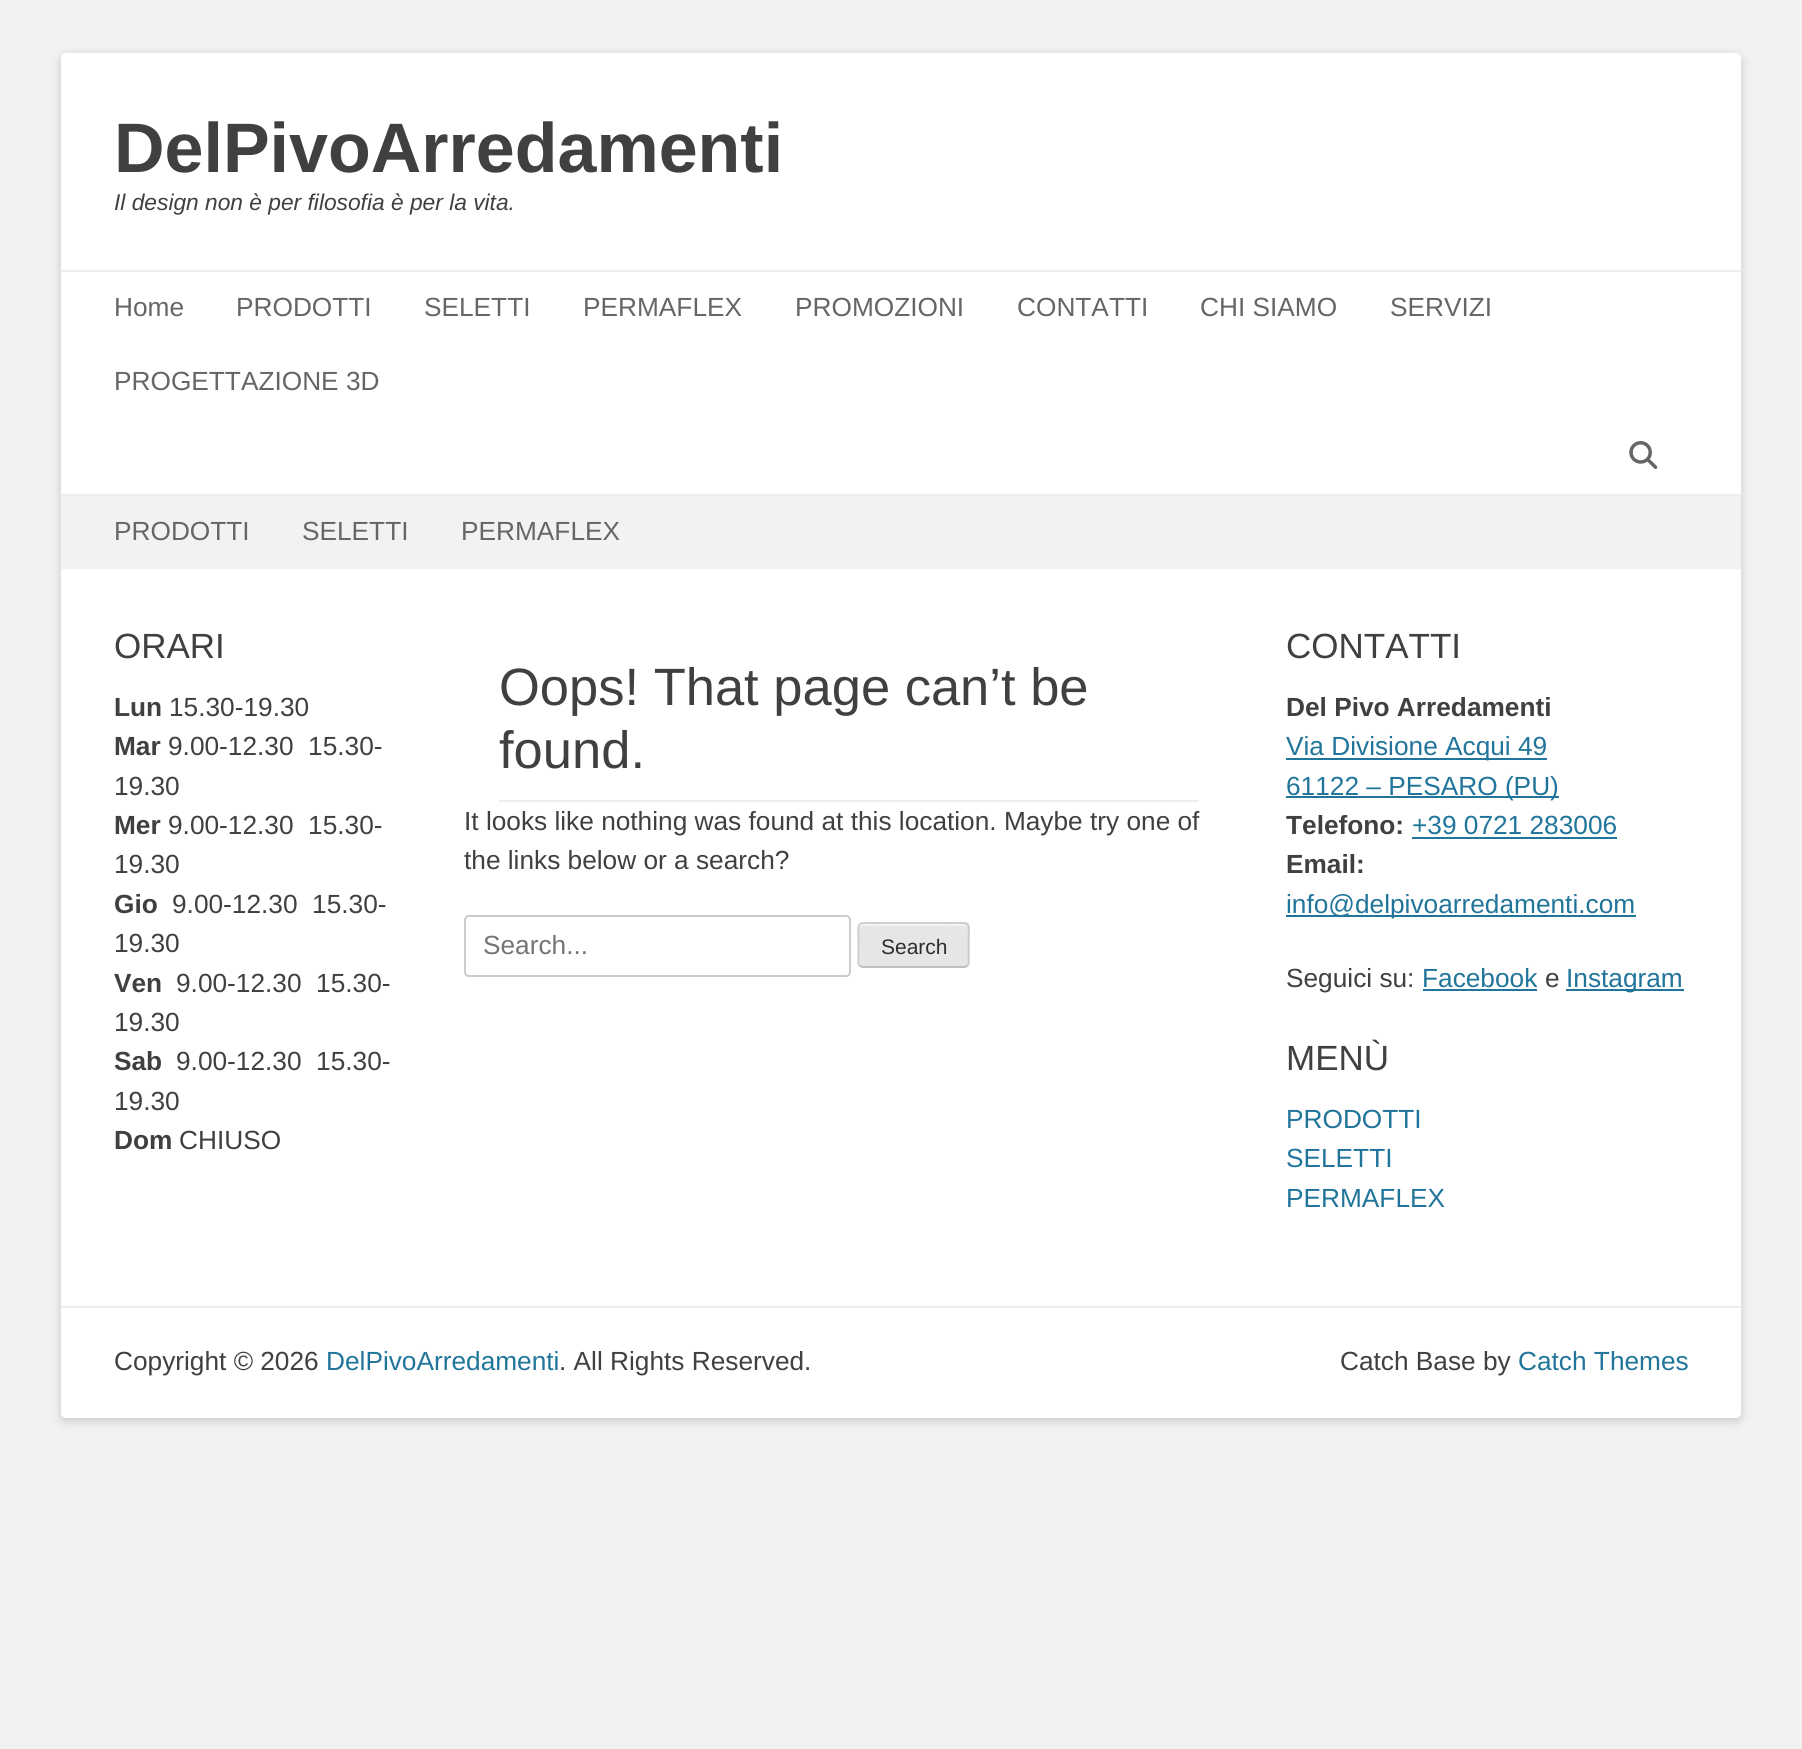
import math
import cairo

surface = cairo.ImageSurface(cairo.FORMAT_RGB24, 1802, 1749)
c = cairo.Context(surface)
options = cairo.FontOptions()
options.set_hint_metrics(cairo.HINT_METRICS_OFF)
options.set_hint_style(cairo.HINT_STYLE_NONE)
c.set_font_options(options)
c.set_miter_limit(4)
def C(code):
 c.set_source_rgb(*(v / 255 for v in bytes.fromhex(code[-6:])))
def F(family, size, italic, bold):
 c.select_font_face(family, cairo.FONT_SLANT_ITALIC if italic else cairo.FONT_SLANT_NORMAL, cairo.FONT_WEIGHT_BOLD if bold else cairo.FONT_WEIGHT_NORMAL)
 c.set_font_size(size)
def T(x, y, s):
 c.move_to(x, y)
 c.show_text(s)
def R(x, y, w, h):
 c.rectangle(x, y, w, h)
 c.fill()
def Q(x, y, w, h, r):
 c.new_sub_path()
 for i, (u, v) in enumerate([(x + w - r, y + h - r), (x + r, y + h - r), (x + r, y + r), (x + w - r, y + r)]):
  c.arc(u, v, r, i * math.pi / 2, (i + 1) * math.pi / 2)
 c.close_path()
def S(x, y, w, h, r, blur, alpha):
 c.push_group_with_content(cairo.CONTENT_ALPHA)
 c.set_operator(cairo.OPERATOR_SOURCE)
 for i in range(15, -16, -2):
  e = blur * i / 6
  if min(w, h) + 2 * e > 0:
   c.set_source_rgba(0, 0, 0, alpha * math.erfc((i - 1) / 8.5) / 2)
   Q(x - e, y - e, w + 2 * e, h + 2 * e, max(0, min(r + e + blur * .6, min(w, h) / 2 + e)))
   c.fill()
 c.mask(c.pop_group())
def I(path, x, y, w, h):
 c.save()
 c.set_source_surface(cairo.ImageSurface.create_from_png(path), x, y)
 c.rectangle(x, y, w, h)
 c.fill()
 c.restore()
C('f2f2f2')
c.paint()
C('646464')
S(61,56,1680,1365,5,5,.3)
C('ffffff')
Q(61,53,1680,1365,5)
c.fill()
F('Liberation Sans',70,0,1)
C('404040')
T(114,172,'DelPivoArredamenti')
F('Liberation Sans',22.75,1,0)
T(114,210,'Il design non è per filosofia è per la vita.')
C('eeeeee')
R(61,270,1680,2)
R(61,494,1680,2)
F('Liberation Sans',26.25,0,0)
C('666666')
T(114,316,'Home')
T(236,316,'PRODOTTI')
T(424,316,'SELETTI')
T(583,316,'PERMAFLEX')
T(795,316,'PROMOZIONI')
T(1017,316,'CONTATTI')
T(1200,316,'CHI SIAMO')
T(1390,316,'SERVIZI')
T(114,390,'PROGETTAZIONE 3D')
I('1.png',1629,441,29,28)
C('f2f2f2')
R(61,496,1680,73)
C('666666')
T(114,540,'PRODOTTI')
T(302,540,'SELETTI')
T(461,540,'PERMAFLEX')
F('Liberation Sans',35,0,0)
C('404040')
T(114,658,'ORARI')
F('Liberation Sans',26.25,0,1)
T(114,716,'Lun')
F('Liberation Sans',26.25,0,0)
T(169,716,'15.30-19.30')
F('Liberation Sans',26.25,0,1)
T(114,755,'Mar')
F('Liberation Sans',26.25,0,0)
T(168,755,'9.00-12.30  15.30-')
T(114,795,'19.30')
F('Liberation Sans',26.25,0,1)
T(114,834,'Mer')
F('Liberation Sans',26.25,0,0)
T(168,834,'9.00-12.30  15.30-')
T(114,873,'19.30')
F('Liberation Sans',26.25,0,1)
T(114,913,'Gio')
F('Liberation Sans',26.25,0,0)
T(172,913,'9.00-12.30  15.30-')
T(114,952,'19.30')
F('Liberation Sans',26.25,0,1)
T(114,992,'Ven')
F('Liberation Sans',26.25,0,0)
T(176,992,'9.00-12.30  15.30-')
T(114,1031,'19.30')
F('Liberation Sans',26.25,0,1)
T(114,1070,'Sab')
F('Liberation Sans',26.25,0,0)
T(176,1070,'9.00-12.30  15.30-')
T(114,1110,'19.30')
F('Liberation Sans',26.25,0,1)
T(114,1149,'Dom')
F('Liberation Sans',26.25,0,0)
T(179,1149,'CHIUSO')
C('eeeeee')
R(499,800,700,2)
F('Liberation Sans',52.5,0,0)
C('404040')
T(499,705,'Oops! That page can’t be')
T(499,768,'found.')
F('Liberation Sans',26.25,0,0)
T(464,830,'It looks like nothing was found at this location. Maybe try one of')
T(464,869,'the links below or a search?')
Q(465,916,385,60,4)
C('cccccc')
c.stroke()
C('757575')
T(483,954,'Search...')
C('e6e6e6')
Q(858,922,112,46,5)
c.fill()
C('f3f3f3')
c.new_path()
c.move_to(863,926)
c.line_to(964,926)
c.curve_to(966,926,968,927,968,929)
c.curve_to(968,920,951,924,947,924)
c.line_to(880,924)
c.curve_to(876,924,859,920,859,929)
c.curve_to(859,927,861,926,863,926)
c.close_path()
c.fill()
c.new_path()
c.move_to(967.5,965.5)
c.line_to(964.5,967)
c.line_to(862.5,967)
c.line_to(859.5,965.5)
C('bbbbbb')
c.set_line_width(1.8)
c.stroke()
c.new_path()
c.move_to(859.5,965.5)
c.curve_to(857.5,963.5,858.5,959,858.5,956.5)
c.line_to(858.5,945)
c.curve_to(858.5,920,854,923,879.5,923)
c.line_to(947.5,923)
c.curve_to(973,923,968.5,920,968.5,945)
c.line_to(968.5,956.5)
c.curve_to(968.5,959,969.5,963.5,967.5,965.5)
C('cccccc')
c.stroke()
F('Liberation Sans',21,0,0)
C('2e2e2e')
T(881,954,'Search')
F('Liberation Sans',35,0,0)
C('404040')
T(1286,658,'CONTATTI')
F('Liberation Sans',26.25,0,1)
T(1286,716,'Del Pivo Arredamenti')
C('21759b')
R(1286,758,261,2)
F('Liberation Sans',26.25,0,0)
T(1286,755,'Via Divisione Acqui 49')
R(1286,796,273,2)
T(1286,795,'61122 – PESARO (PU)')
F('Liberation Sans',26.25,0,1)
C('404040')
T(1286,834,'Telefono:')
F('Liberation Sans',26.25,0,0)
C('21759b')
T(1412,834,'+39 0721 283006')
R(1412,837,205,2)
F('Liberation Sans',26.25,0,1)
C('404040')
T(1286,873,'Email:')
C('21759b')
R(1286,915,350,2)
F('Liberation Sans',26.25,0,0)
T(1286,913,'info@delpivoarredamenti.com')
C('404040')
T(1286,987,'Seguici su:')
C('21759b')
T(1422,987,'Facebook')
R(1423,989,114,2)
C('404040')
T(1545,987,'e')
C('21759b')
R(1566,989,118,2)
T(1566,987,'Instagram')
F('Liberation Sans',35,0,0)
C('404040')
T(1286,1070,'MENÙ')
F('Liberation Sans',26.25,0,0)
C('21759b')
T(1286,1128,'PRODOTTI')
T(1286,1167,'SELETTI')
T(1286,1207,'PERMAFLEX')
C('eeeeee')
R(61,1306,1680,2)
C('404040')
T(114,1370,'Copyright © 2026')
C('21759b')
T(326,1370,'DelPivoArredamenti')
C('404040')
T(559,1370,'. All Rights Reserved.')
T(1340,1370,'Catch Base by')
C('21759b')
T(1518,1370,'Catch Themes')
surface.write_to_png('o.png')
